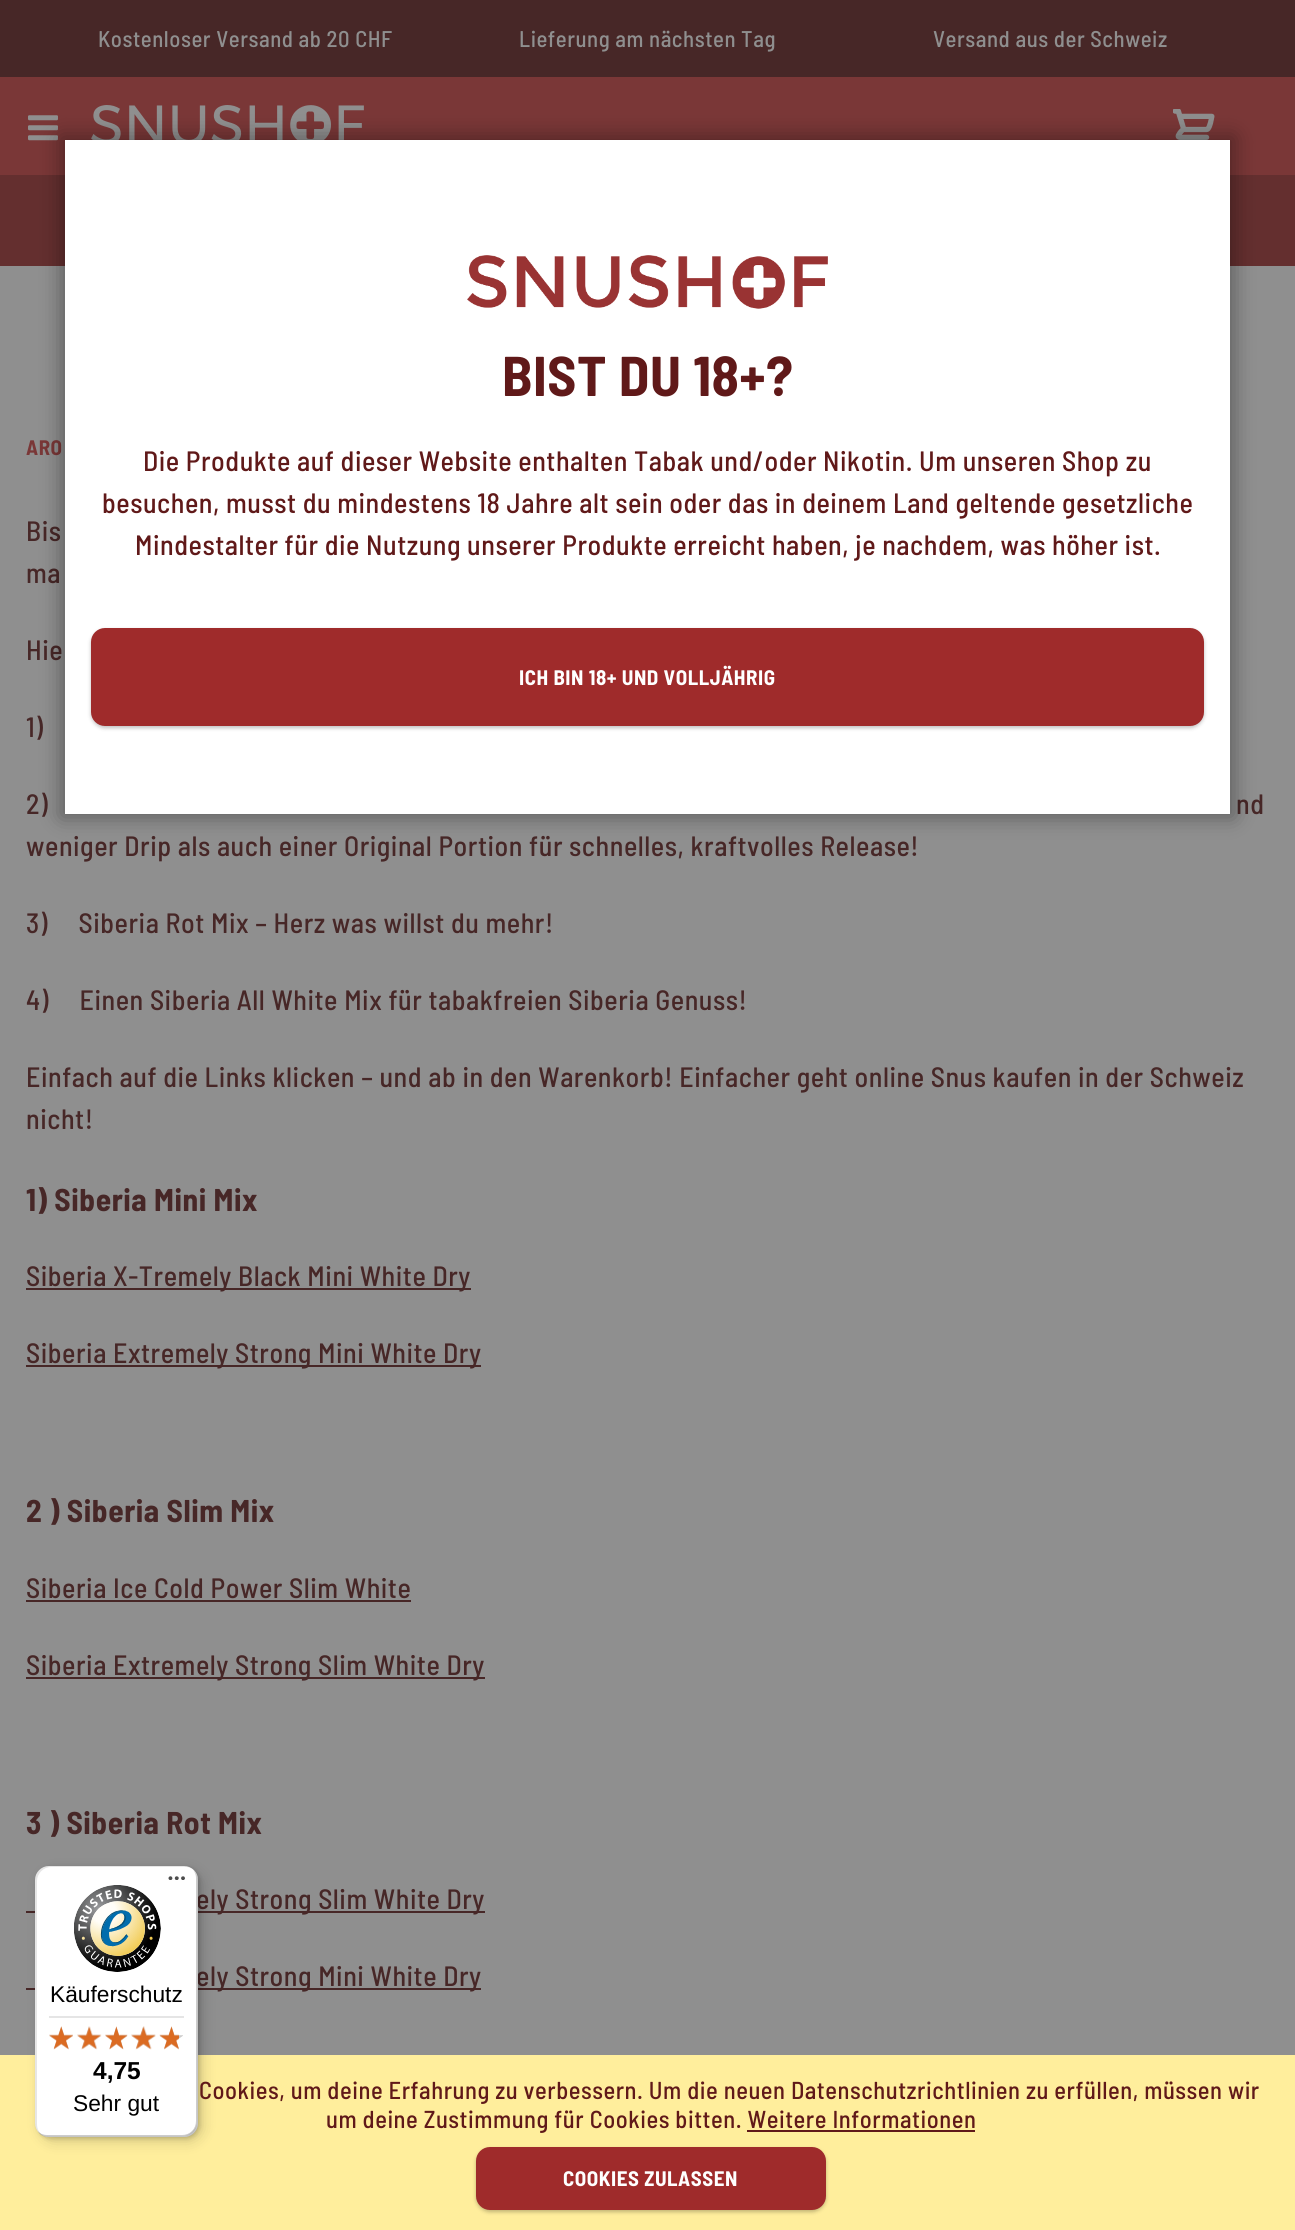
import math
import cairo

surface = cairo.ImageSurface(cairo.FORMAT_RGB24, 1295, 2230)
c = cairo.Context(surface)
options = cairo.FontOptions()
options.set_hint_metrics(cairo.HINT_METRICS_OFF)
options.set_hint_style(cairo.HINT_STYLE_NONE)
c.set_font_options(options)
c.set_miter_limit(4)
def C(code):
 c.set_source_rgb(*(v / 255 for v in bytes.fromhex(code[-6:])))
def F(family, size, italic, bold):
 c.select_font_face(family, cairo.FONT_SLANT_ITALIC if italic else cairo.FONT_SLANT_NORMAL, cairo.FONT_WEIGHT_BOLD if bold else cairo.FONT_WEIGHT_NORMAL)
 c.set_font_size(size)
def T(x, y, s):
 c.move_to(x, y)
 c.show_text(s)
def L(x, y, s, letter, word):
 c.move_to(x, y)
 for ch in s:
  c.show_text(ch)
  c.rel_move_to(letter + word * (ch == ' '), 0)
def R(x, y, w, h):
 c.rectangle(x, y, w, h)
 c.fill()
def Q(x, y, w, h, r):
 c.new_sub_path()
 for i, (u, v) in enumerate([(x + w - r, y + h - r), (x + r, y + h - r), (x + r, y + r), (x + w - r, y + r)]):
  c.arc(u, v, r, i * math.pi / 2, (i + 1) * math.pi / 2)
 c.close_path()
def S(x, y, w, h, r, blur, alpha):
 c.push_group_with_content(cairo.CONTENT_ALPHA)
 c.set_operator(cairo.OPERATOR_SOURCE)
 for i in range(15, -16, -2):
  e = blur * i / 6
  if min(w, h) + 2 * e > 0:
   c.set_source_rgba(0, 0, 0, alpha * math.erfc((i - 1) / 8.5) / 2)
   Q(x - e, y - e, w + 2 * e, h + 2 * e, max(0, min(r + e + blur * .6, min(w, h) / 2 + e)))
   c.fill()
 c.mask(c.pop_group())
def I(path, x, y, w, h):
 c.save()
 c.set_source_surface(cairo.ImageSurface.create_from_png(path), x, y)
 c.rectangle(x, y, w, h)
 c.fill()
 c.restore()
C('8f8f8f')
c.paint()
C('472727')
R(0,0,1295,77)
F('Barlow Semi Condensed Medium',22.75,0,0)
C('8f8f8f')
L(98,47,'Kostenloser Versand ab 20 CHF',.53,0)
L(519,47,'Lieferung am nächsten Tag',.53,0)
L(933,47,'Versand aus der Schweiz',.53,0)
C('7a3737')
R(0,77,1295,98)
I('1.png',28,115,30,26)
I('2.png',91,105,273,35)
C('642f2f')
R(0,175,1295,91)
I('3.png',1173,109,42,31)
F('Barlow Semi Condensed',21,0,1)
C('7a3737')
L(26,455,'ARO',.53,0)
F('Barlow Semi Condensed Medium',28,0,0)
C('472727')
L(26,541,'Bis',.53,0)
L(26,583,'ma',.53,0)
L(26,660,'Hie',.53,0)
L(26,737,'1)',.53,0)
L(26,814,'2)',.53,0)
L(1236,814,'nd',.53,0)
L(26,856,'weniger Drip als auch einer Original Portion für schnelles, kraftvolles Release!',.53,0)
L(26,933,'3)     Siberia Rot Mix – Herz was willst du mehr!',.53,0)
L(26,1010,'4)     Einen Siberia All White Mix für tabakfreien Siberia Genuss!',.53,0)
L(26,1087,'Einfach auf die Links klicken – und ab in den Warenkorb! Einfacher geht online Snus kaufen in der Schweiz',.53,0)
L(26,1129,'nicht!',.53,0)
F('Barlow Semi Condensed',31.5,0,1)
L(26,1211,'1) Siberia Mini Mix',.53,0)
R(26,1288,445,2)
F('Barlow Semi Condensed Medium',28,0,0)
L(26,1286,'Siberia X-Tremely Black Mini White Dry',.53,0)
R(26,1365,455,2)
L(26,1363,'Siberia Extremely Strong Mini White Dry',.53,0)
F('Barlow Semi Condensed',31.5,0,1)
L(26,1522,'2 ) Siberia Slim Mix',.53,0)
F('Barlow Semi Condensed Medium',28,0,0)
L(26,1598,'Siberia Ice Cold Power Slim White',.53,0)
R(26,1600,385,2)
R(26,1677,459,2)
L(26,1675,'Siberia Extremely Strong Slim White Dry',.53,0)
F('Barlow Semi Condensed',31.5,0,1)
L(26,1834,'3 ) Siberia Rot Mix',.53,0)
R(26,1911,459,2)
F('Barlow Semi Condensed Medium',28,0,0)
L(196,1909,'ely Strong Slim White Dry',.53,0)
R(26,1988,455,2)
L(196,1986,'ely Strong Mini White Dry',.53,0)
C('000000')
S(61,137,1173,680,0,10.5,.35)
C('ffffff')
R(65,140,1165,674)
I('4.png',467,255,361,54)
F('Barlow Semi Condensed',56,0,1)
C('601919')
L(502,396,'BIST DU 18+?',.53,0)
F('Barlow Semi Condensed Medium',28,0,0)
L(143,471,'Die Produkte auf dieser Website enthalten Tabak und/oder Nikotin. Um unseren Shop zu',.53,0)
L(102,513,'besuchen, musst du mindestens 18 Jahre alt sein oder das in deinem Land geltende gesetzliche',.53,0)
L(135,555,'Mindestalter für die Nutzung unserer Produkte erreicht haben, je nachdem, was höher ist.',.53,0)
C('000000')
S(91,630,1113,98,14,2,.25)
C('9f2b2b')
Q(93,630,1109,94,12)
c.fill_preserve()
c.set_line_width(4)
c.stroke()
F('Barlow Semi Condensed',21,0,1)
C('ffffff')
L(519,685,'ICH BIN 18+ UND VOLLJÄHRIG',.53,0)
C('ffee9c')
R(0,2055,1295,175)
C('000000')
S(40,1871,163,271,14,7,.15)
S(37,1867,163,272,14,2,.15)
C('ffffff')
Q(35,1866,163,271,14)
c.fill()
c.set_source_rgba(0,0,0,0.1)
c.new_path()
c.move_to(51,1867)
c.line_to(186,1867)
c.curve_to(188,1867,191,1868,193,1869)
c.curve_to(190,1867,187,1866,184,1866)
c.line_to(49,1866)
c.curve_to(41,1866,35,1872,35,1880)
c.line_to(35,2123)
c.curve_to(35,2129,38,2133,43,2136)
c.curve_to(39,2133,37,2129,37,2124)
c.line_to(37,1881)
c.curve_to(37,1874,43,1867,51,1867)
c.close_path()
c.fill()
c.set_source_rgba(0,0,0,0.2)
c.new_path()
c.move_to(38,2131)
c.curve_to(40,2135,44,2137,49,2137)
c.line_to(184,2137)
c.curve_to(192,2137,198,2131,198,2123)
c.line_to(198,1880)
c.curve_to(198,1876,196,1872,193,1870)
c.curve_to(195,1872,196,1875,196,1878)
c.line_to(196,2121)
c.curve_to(196,2129,190,2135,182,2135)
c.line_to(47,2135)
c.curve_to(44,2135,40,2134,38,2131)
c.close_path()
c.fill()
c.set_source_rgba(0.196,0.196,0.196,0.2)
c.new_path()
c.move_to(38,2131)
c.curve_to(40,2135,44,2137,49,2137)
c.line_to(184,2137)
c.curve_to(192,2137,198,2131,198,2123)
c.line_to(198,1880)
c.curve_to(198,1877,197,1874,195,1871)
c.curve_to(196,1873,197,1876,197,1878)
c.line_to(197,2122)
c.curve_to(197,2129,190,2136,183,2136)
c.line_to(48,2136)
c.curve_to(44,2136,40,2134,38,2131)
c.close_path()
c.fill()
c.set_source_rgba(1,1,1,0.3)
c.new_path()
c.move_to(40,2133)
c.curve_to(42,2136,45,2137,49,2137)
c.line_to(184,2137)
c.curve_to(192,2137,198,2131,198,2123)
c.line_to(198,1880)
c.curve_to(198,1876,197,1873,194,1871)
c.curve_to(196,1873,197,1876,197,1879)
c.line_to(197,2122)
c.curve_to(197,2130,191,2136,183,2136)
c.line_to(48,2136)
c.curve_to(45,2136,42,2135,40,2133)
c.close_path()
c.fill()
I('5.png',168,1876,17,4)
I('6.png',74,1885,87,87)
F('Liberation Sans',22.75,0,0)
C('000000')
T(50,2002,'Käuferschutz')
C('e5e5e5')
R(49,2016,135,2)
I('7.png',49,2027,24,22)
I('8.png',77,2026,24,23)
I('9.png',105,2027,23,22)
I('10.png',131,2026,25,23)
I('11.png',159,2027,24,22)
I('12.png',49,2026,24,24)
I('13.png',77,2026,25,24)
I('14.png',105,2026,23,24)
I('15.png',131,2026,25,24)
I('16.png',159,2026,20,24)
F('Liberation Sans',24.5,0,1)
C('000000')
T(93,2079,'4,75')
F('Liberation Sans',22.75,0,0)
T(73,2111,'Sehr gut')
F('Barlow Semi Condensed Medium',24.5,0,0)
C('601919')
L(199,2099,'Cookies, um deine Erfahrung zu verbessern. Um die neuen Datenschutzrichtlinien zu erfüllen, müssen wir',.53,0)
L(326,2128,'um deine Zustimmung für Cookies bitten. Weitere Informationen',.53,0)
R(747,2130,228,2)
C('000000')
S(476,2149,350,63,14,2,.25)
C('9f2b2b')
Q(478,2149,346,59,12)
c.fill_preserve()
c.stroke()
F('Barlow Semi Condensed',21,0,1)
C('ffffff')
L(563,2186,'COOKIES ZULASSEN',.53,0)
surface.write_to_png('o.png')
